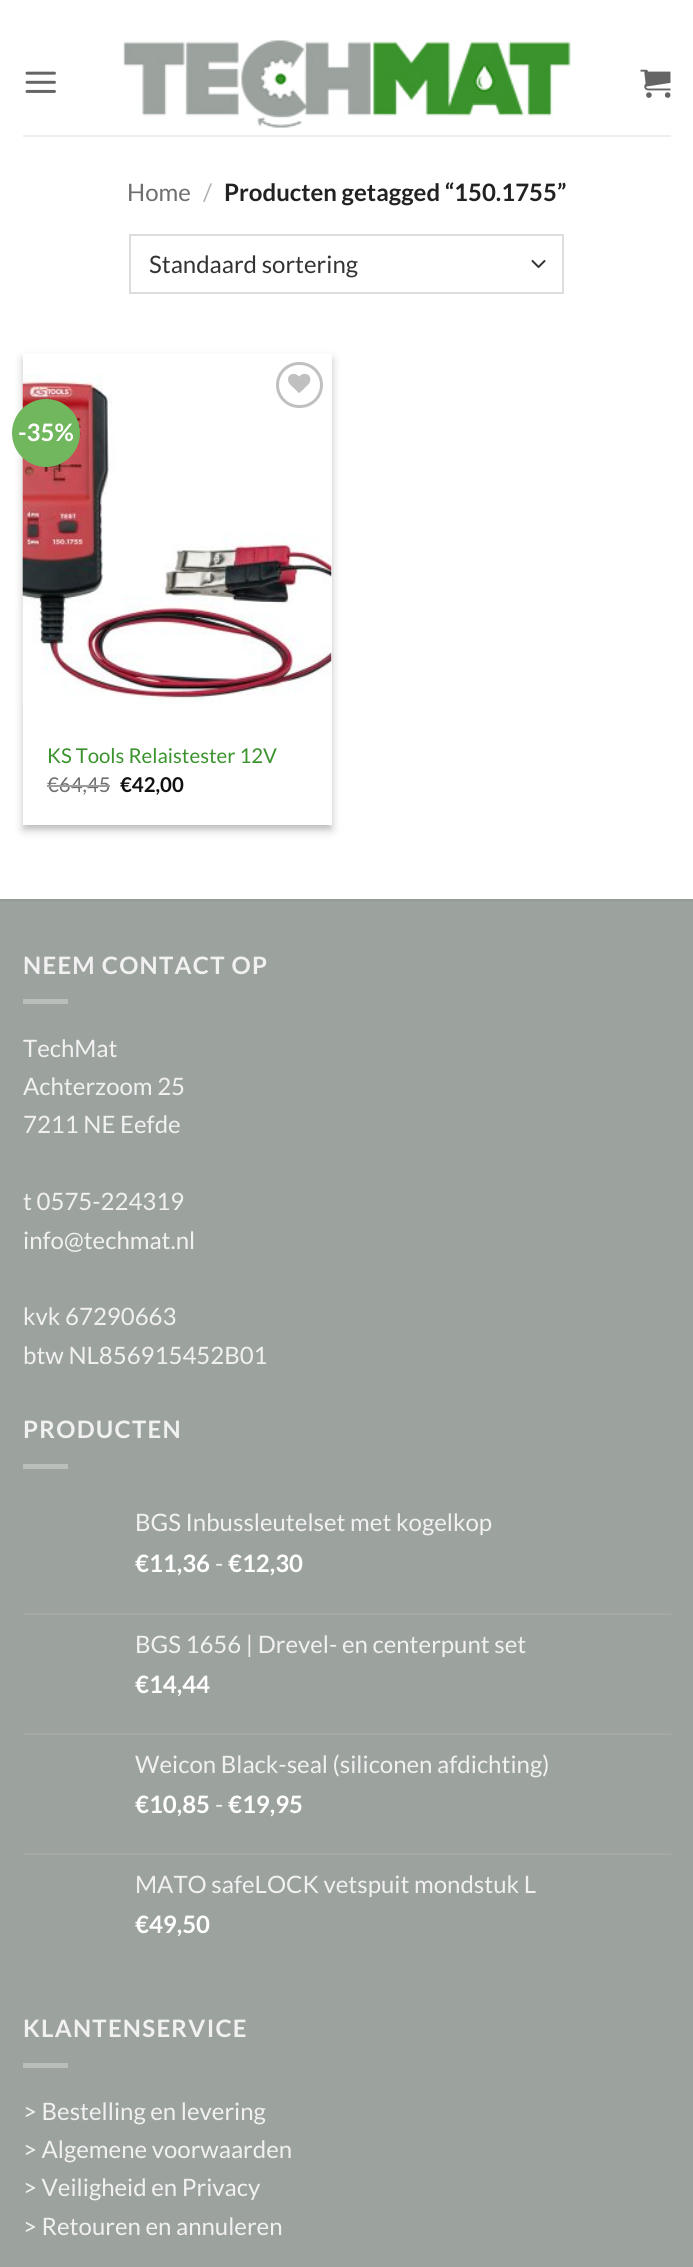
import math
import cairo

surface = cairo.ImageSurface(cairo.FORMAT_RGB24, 693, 2267)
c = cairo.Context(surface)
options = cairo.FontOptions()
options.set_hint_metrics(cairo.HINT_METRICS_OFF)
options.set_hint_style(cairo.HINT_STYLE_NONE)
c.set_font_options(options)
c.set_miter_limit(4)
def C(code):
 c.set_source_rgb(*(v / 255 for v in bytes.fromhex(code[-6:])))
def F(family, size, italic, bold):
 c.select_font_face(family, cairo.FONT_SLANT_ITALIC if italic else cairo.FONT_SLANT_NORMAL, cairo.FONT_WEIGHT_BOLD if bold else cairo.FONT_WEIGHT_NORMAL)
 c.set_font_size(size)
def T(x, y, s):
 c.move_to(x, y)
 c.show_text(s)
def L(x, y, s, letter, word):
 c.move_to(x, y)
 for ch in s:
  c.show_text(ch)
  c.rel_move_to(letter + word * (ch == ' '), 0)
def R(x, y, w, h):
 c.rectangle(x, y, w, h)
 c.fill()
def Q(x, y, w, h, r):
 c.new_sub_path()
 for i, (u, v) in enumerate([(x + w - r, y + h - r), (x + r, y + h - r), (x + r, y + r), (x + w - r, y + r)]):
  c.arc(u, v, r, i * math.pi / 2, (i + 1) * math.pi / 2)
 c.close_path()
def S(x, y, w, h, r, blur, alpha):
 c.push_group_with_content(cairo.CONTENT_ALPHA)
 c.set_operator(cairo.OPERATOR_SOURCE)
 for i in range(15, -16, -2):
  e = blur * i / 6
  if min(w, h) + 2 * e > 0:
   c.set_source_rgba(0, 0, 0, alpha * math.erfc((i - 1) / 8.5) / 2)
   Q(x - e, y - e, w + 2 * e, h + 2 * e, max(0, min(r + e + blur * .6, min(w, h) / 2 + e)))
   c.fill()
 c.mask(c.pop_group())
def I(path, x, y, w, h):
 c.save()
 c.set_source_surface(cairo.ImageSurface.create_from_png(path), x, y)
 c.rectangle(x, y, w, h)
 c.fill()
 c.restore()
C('ffffff')
c.paint()
I('1.png',25,71,31,22)
I('2.png',123,39,448,89)
I('3.png',640,69,31,29)
C('efefef')
R(23,135,648,2)
F('Lato',24,0,0)
C('6e6e6e')
T(127,201,'Home')
C('b2b2b2')
T(203,201,'/')
F('Lato',24,0,1)
C('222222')
T(224,201,'Producten getagged “150.1755”')
c.new_path()
c.move_to(532.5,261)
c.line_to(538.5,267)
c.line_to(544.5,261)
C('333333')
c.set_line_cap(cairo.LINE_CAP_ROUND)
c.set_line_join(cairo.LINE_JOIN_ROUND)
c.stroke()
c.rectangle(130,235,433,58)
C('dddddd')
c.set_line_cap(cairo.LINE_CAP_BUTT)
c.set_line_join(cairo.LINE_JOIN_MITER)
c.stroke()
F('Lato',24,0,0)
C('333333')
T(149,273,'Standaard sortering')
C('000000')
S(23,359,309,471,0,4.5,.23)
S(29,365,297,459,0,4.5,.16)
C('ffffff')
R(23,354,309,471)
I('5.png',22,373,310,331)
C('71b75d')
c.arc(46,433,34,0,2 * math.pi)
c.fill()
F('Lato',24,0,1)
C('ffffff')
T(18,441,'-35%')
Q(277.5,363.5,44,43,21.5)
C('c0c0c0')
c.set_line_width(3)
c.stroke()
I('4.png',288,373,23,20)
F('Lato',20.4,0,0)
C('3a932c')
T(47,763,'KS Tools Relaistester 12V')
C('6e6e6e')
T(47,792,'€64,45')
C('9e9e9e')
R(47,785,63,2)
F('Lato',20.4,0,1)
C('111111')
T(120,792,'€42,00')
C('9ca29e')
R(0,901,693,1366)
C('949a96')
R(0,899,693,2)
F('Lato',24,0,1)
C('f1f1f1')
L(23,974,'NEEM CONTACT OP',1.25,0)
C('babebb')
R(23,999,45,5)
F('Lato',24,0,0)
C('f1f1f1')
T(23,1057,'TechMat')
T(23,1095,'Achterzoom 25')
T(23,1133,'7211 NE Eefde')
T(23,1210,'t 0575-224319')
T(23,1249,'info@techmat.nl')
T(23,1325,'kvk 67290663')
T(23,1364,'btw NL856915452B01')
F('Lato',24,0,1)
L(23,1438,'PRODUCTEN',1.25,0)
C('babebb')
R(23,1464,45,5)
F('Lato',24,0,0)
C('f1f1f1')
T(135,1531,'BGS Inbussleutelset met kogelkop')
F('Lato',24,0,1)
C('ffffff')
T(135,1572,'€11,36')
F('Lato',24,0,0)
C('f1f1f1')
T(215,1572,'-')
F('Lato',24,0,1)
C('ffffff')
T(228,1572,'€12,30')
C('a4a9a6')
R(23,1613,648,2)
F('Lato',24,0,0)
C('f1f1f1')
T(135,1653,'BGS 1656 | Drevel- en centerpunt set')
F('Lato',24,0,1)
C('ffffff')
T(135,1693,'€14,44')
C('a4a9a6')
R(23,1733,648,2)
F('Lato',24,0,0)
C('f1f1f1')
T(135,1773,'Weicon Black-seal (siliconen afdichting)')
F('Lato',24,0,1)
C('ffffff')
T(135,1813,'€10,85')
F('Lato',24,0,0)
C('f1f1f1')
T(215,1813,'-')
F('Lato',24,0,1)
C('ffffff')
T(228,1813,'€19,95')
C('a4a9a6')
R(23,1853,648,2)
F('Lato',24,0,0)
C('f1f1f1')
T(135,1893,'MATO safeLOCK vetspuit mondstuk L')
F('Lato',24,0,1)
C('ffffff')
T(135,1933,'€49,50')
C('f1f1f1')
L(23,2037,'KLANTENSERVICE',1.25,0)
C('babebb')
R(23,2063,45,5)
F('Lato',24,0,0)
C('f1f1f1')
T(23,2120,'> Bestelling en levering')
T(23,2158,'> Algemene voorwaarden')
T(23,2196,'> Veiligheid en Privacy')
T(23,2235,'> Retouren en annuleren')
surface.write_to_png('o.png')
